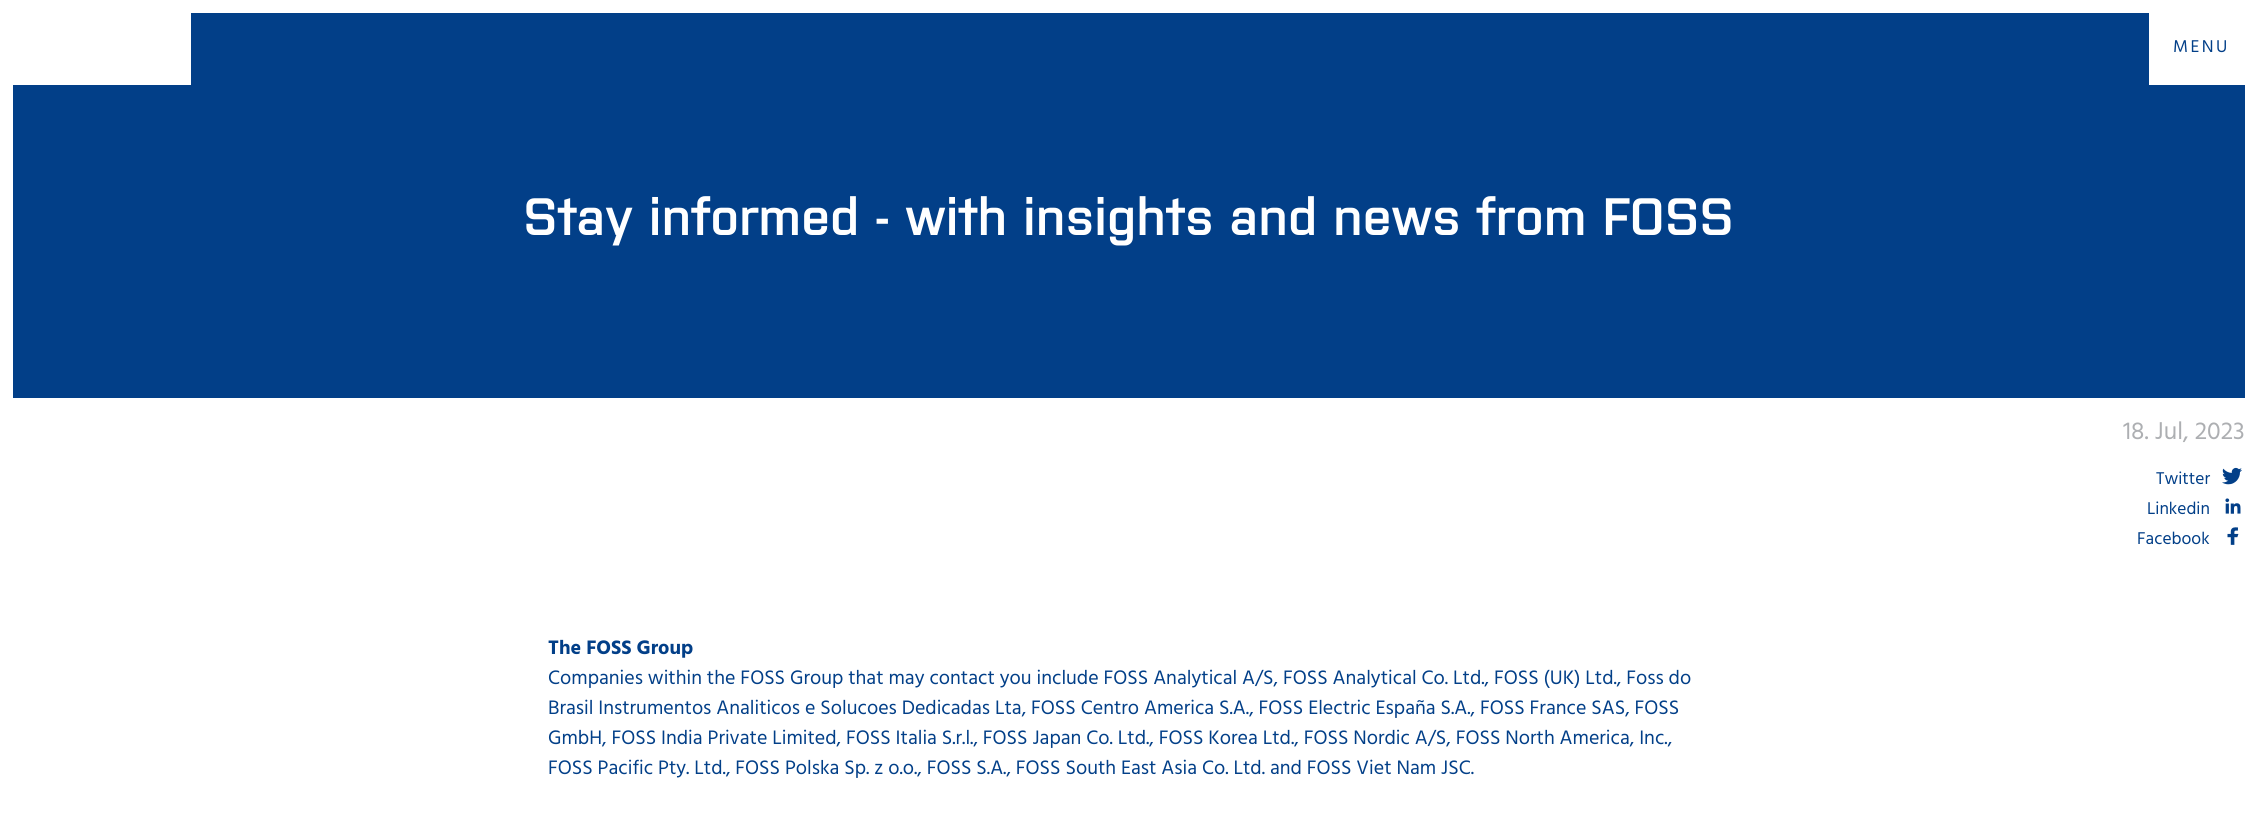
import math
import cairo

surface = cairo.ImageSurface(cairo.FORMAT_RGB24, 2257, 828)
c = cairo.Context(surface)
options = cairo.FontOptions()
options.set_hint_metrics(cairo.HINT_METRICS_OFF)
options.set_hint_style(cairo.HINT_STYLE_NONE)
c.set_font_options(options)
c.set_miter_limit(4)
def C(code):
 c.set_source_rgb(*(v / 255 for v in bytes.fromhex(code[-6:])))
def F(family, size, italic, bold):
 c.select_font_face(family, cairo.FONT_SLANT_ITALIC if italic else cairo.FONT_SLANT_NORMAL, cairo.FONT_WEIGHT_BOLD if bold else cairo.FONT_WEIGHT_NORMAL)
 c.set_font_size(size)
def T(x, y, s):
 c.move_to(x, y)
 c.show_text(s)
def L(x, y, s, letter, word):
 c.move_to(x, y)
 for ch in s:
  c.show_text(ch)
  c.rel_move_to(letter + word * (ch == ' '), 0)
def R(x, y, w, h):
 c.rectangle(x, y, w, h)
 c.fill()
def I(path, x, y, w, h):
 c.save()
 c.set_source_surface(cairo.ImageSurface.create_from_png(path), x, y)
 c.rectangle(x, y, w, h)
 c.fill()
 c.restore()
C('ffffff')
c.paint()
C('023f88')
R(13,13,2232,385)
C('ffffff')
R(13,13,178,72)
R(2149,13,96,72)
F('Hind',17.5,0,0)
C('023f88')
L(2173,52,'MENU',2.5,0)
F('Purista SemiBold',52.5,0,0)
C('ffffff')
T(523,235,'Stay informed - with insights and news from FOSS')
F('Hind',25,0,0)
C('adafb2')
T(2123,439,'18. Jul, 2023')
F('Hind',17.5,0,0)
C('023f88')
T(2156,484,'Twitter')
I('1.png',2222,467,20,18)
T(2147,514,'Linkedin')
I('2.png',2225,498,16,16)
T(2137,544,'Facebook')
I('3.png',2227,527,12,18)
F('Hind',20,0,1)
T(548,654,'The FOSS Group')
F('Hind',20,0,0)
T(548,684,'Companies within the FOSS Group that may contact you include FOSS Analytical A/S, FOSS Analytical Co. Ltd., FOSS (UK) Ltd., Foss do')
T(548,714,'Brasil Instrumentos Analiticos e Solucoes Dedicadas Lta, FOSS Centro America S.A., FOSS Electric España S.A., FOSS France SAS, FOSS')
T(548,744,'GmbH, FOSS India Private Limited, FOSS Italia S.r.l., FOSS Japan Co. Ltd., FOSS Korea Ltd., FOSS Nordic A/S, FOSS North America, Inc.,')
T(548,774,'FOSS Pacific Pty. Ltd., FOSS Polska Sp. z o.o., FOSS S.A., FOSS South East Asia Co. Ltd. and FOSS Viet Nam JSC.')
surface.write_to_png('o.png')
